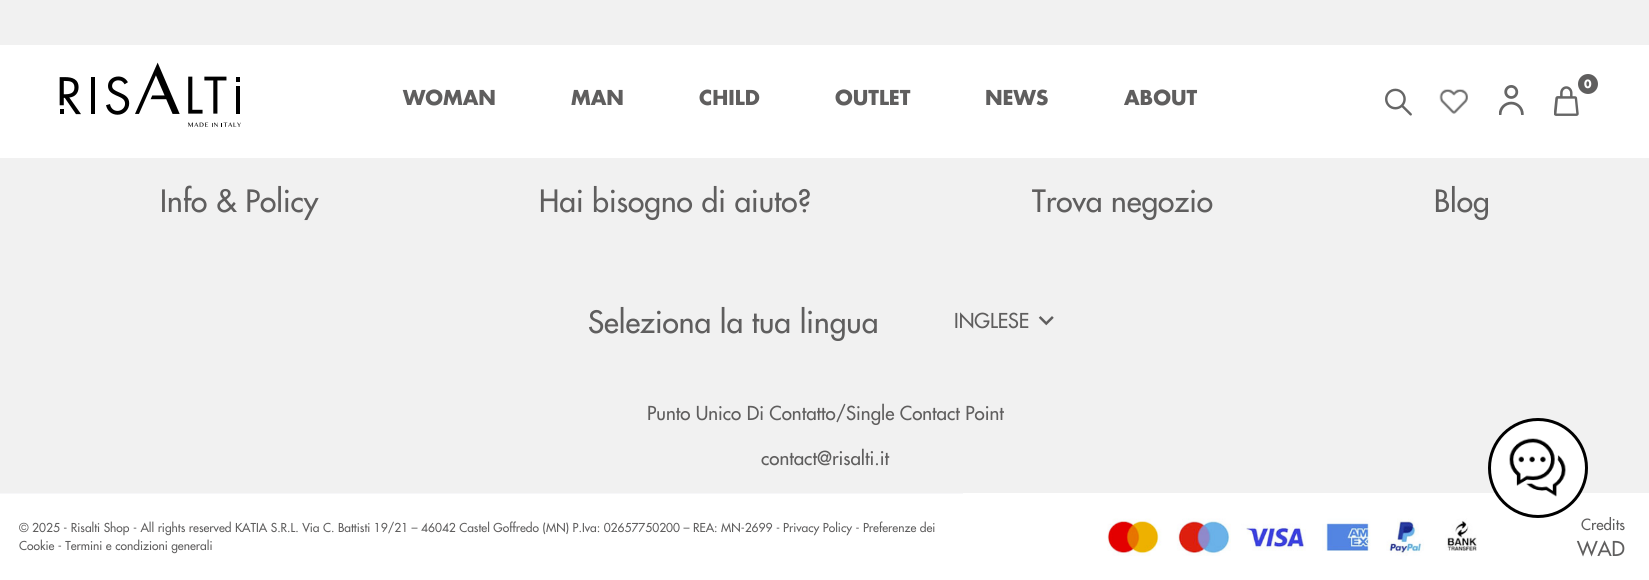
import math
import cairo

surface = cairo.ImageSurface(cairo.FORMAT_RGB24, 1649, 580)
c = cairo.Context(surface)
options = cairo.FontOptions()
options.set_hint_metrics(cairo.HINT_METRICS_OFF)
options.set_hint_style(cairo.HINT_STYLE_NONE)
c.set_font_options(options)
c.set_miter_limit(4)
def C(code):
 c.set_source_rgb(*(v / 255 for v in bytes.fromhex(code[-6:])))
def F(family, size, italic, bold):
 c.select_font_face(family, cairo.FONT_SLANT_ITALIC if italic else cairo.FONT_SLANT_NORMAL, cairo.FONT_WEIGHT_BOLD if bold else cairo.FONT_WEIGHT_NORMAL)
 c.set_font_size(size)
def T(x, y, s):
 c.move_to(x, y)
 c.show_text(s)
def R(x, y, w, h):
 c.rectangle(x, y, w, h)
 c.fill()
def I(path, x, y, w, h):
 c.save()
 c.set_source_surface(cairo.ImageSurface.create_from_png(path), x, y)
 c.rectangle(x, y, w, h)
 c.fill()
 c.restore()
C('f1f1f1')
c.paint()
C('ffffff')
R(0,45,1649,113)
I('1.png',59,62,182,65)
I('2.png',1554,86,25,30)
C('5f5e5e')
c.arc(1588,84,10,0,2 * math.pi)
c.fill()
F('Futura',11,0,1)
C('ffffff')
T(1584,88,'0')
I('3.png',1439,89,29,25)
I('4.png',1499,85,25,30)
I('5.png',1385,88,27,28)
F('Futura',20,0,1)
C('5f5e5e')
T(403,105,'WOMAN')
T(571,105,'MAN')
T(699,105,'CHILD')
T(835,105,'OUTLET')
T(985,105,'NEWS')
T(1124,105,'ABOUT')
F('Futura Medium',30,0,0)
T(160,212,'Info & Policy')
T(539,212,'Hai bisogno di aiuto?')
T(1032,212,'Trova negozio')
T(1434,212,'Blog')
T(588,333,'Seleziona la tua lingua')
F('Futura Medium',20,0,0)
T(954,328,'INGLESE')
I('6.png',1038,316,16,10)
F('Futura Medium',18.75,0,0)
T(647,420,'Punto Unico Di Contatto/Single Contact Point')
T(761,465,'contact@risalti.it')
C('ffffff')
R(0,493,1649,87)
C('f7f7f9')
R(0,493,963,1)
F('Futura Medium',12,0,0)
C('5f5e5e')
T(19,532,'© 2025 - Risalti Shop - All rights reserved KATIA S.R.L. Via C. Battisti 19/21 – 46042 Castel Goffredo (MN) P.Iva: 02657750200 – REA: MN-2699 -')
T(783,532,'Privacy Policy - Preferenze dei')
T(19,550,'Cookie - Termini e condizioni generali')
I('7.png',1107,518,370,38)
F('Futura Medium',15,0,0)
T(1581,530,'Credits')
F('Futura Medium',20,0,0)
T(1577,556,'WAD')
C('ffffff')
c.new_path()
c.arc(1538,468,48.5,0,2 * math.pi)
c.fill_preserve()
C('000000')
c.set_line_width(3)
c.stroke()
I('8.png',1509,438,57,59)
surface.write_to_png('o.png')
